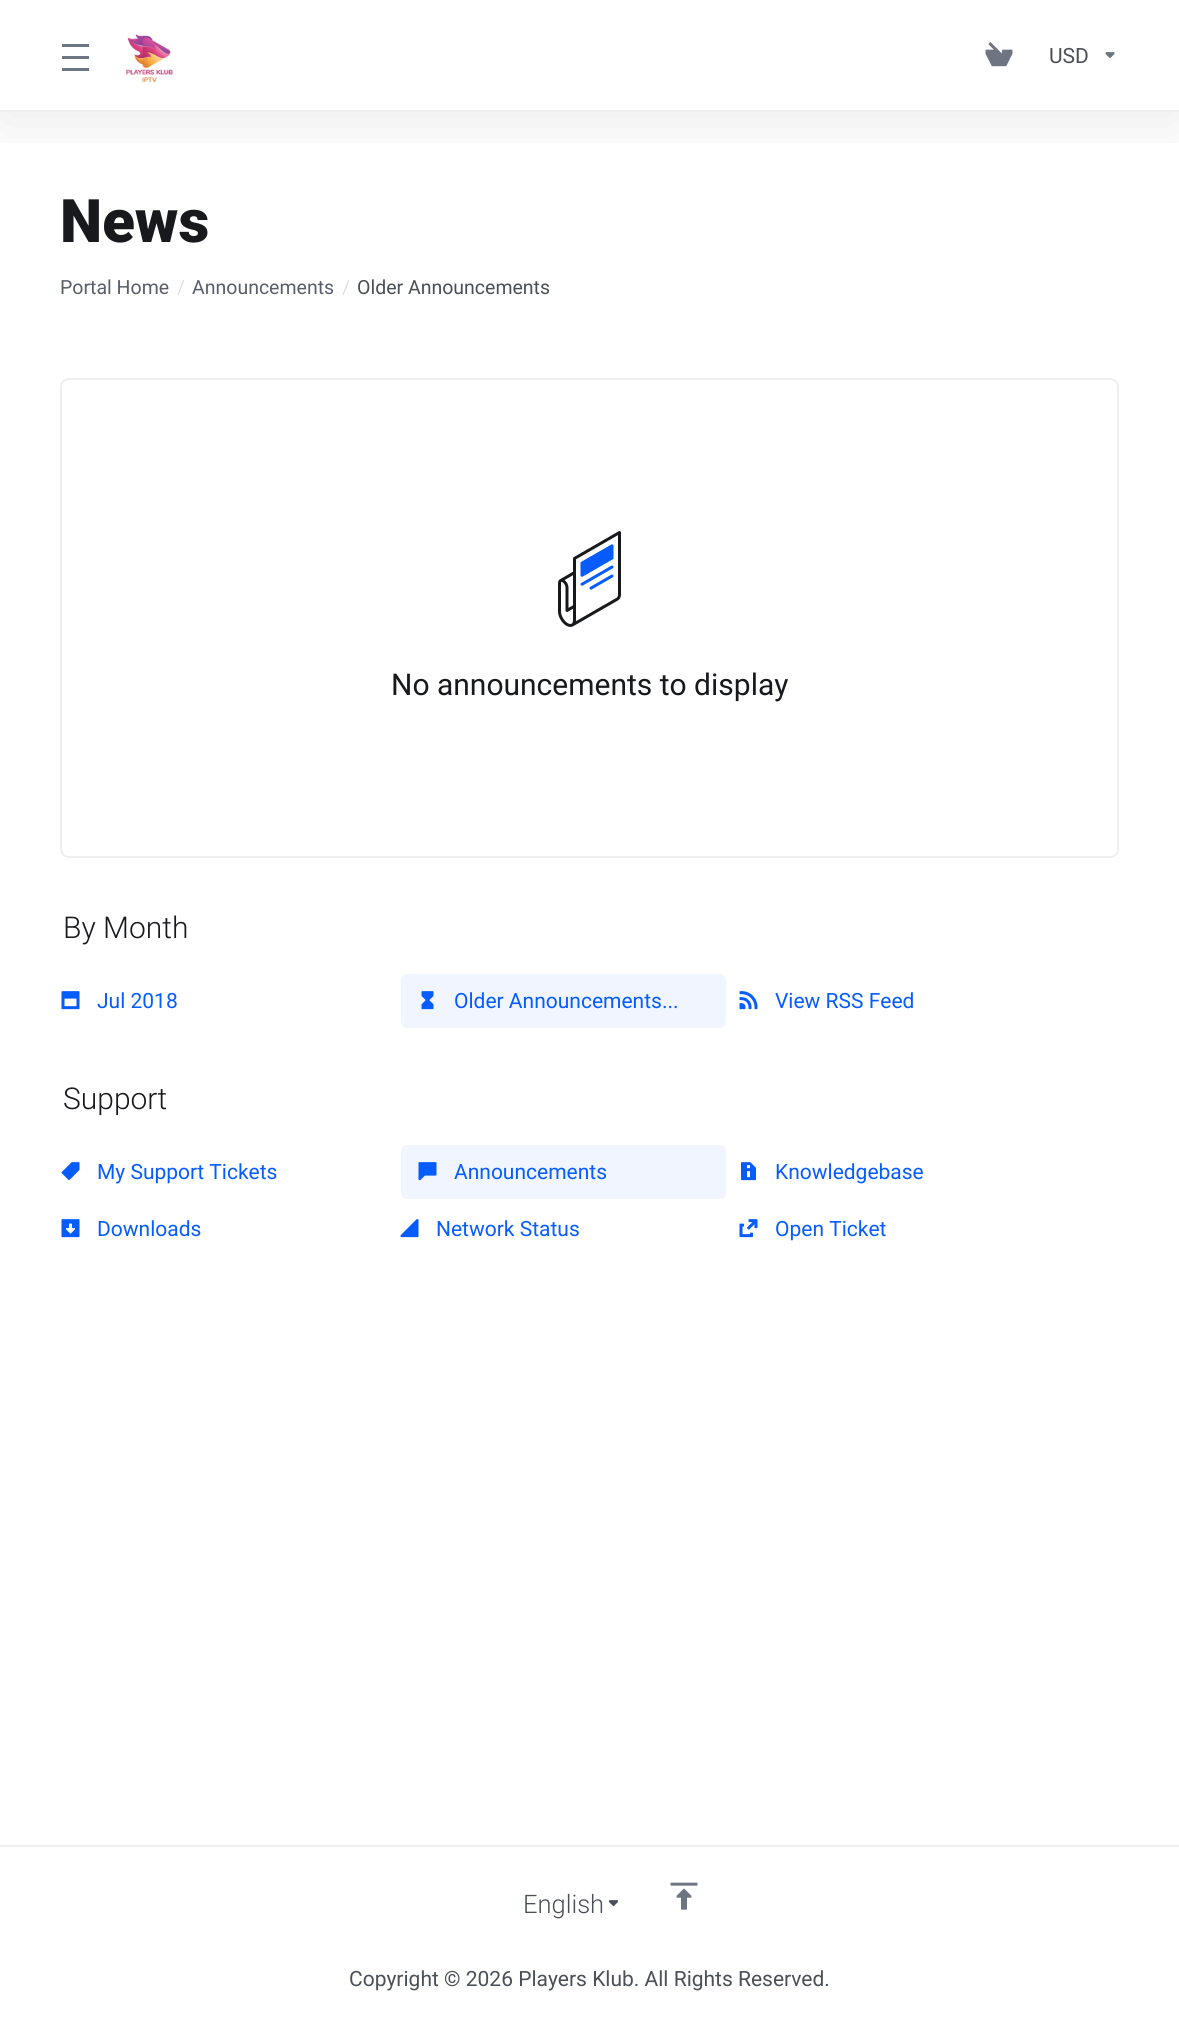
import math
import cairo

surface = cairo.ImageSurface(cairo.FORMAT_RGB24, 1179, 2020)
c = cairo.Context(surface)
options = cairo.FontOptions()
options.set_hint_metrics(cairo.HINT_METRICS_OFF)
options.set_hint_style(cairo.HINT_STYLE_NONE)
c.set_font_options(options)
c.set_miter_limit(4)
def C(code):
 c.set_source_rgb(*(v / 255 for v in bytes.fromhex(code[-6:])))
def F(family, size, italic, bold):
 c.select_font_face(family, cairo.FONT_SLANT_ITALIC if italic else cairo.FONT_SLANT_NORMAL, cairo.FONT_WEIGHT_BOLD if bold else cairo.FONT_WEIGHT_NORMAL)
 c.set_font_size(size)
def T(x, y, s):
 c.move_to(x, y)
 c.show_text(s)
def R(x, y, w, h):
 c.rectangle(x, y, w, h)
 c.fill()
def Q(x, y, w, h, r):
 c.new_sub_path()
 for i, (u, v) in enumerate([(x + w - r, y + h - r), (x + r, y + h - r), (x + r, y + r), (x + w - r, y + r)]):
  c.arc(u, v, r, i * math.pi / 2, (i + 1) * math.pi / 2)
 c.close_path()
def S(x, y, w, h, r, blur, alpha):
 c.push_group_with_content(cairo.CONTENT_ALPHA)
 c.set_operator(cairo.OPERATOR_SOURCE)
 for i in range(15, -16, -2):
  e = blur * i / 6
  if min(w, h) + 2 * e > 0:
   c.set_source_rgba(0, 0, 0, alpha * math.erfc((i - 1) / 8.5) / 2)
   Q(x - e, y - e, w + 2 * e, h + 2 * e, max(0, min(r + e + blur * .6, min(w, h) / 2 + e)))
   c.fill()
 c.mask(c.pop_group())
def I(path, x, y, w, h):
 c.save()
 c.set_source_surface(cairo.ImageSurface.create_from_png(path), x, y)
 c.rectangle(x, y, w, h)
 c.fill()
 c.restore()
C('ffffff')
c.paint()
c.save()
c.rectangle(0,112,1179,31)
c.clip()
C('000000')
S(0,12,1179,111,0,30,.08)
c.restore()
C('efeff1')
R(0,110,1179,2)
C('6d7482')
R(62,44,27,3)
R(62,56,27,3)
R(62,68,27,3)
I('1.png',126,34,47,49)
I('2.png',985,42,28,25)
F('Roboto',21,0,0)
C('4b4f58')
T(1049,63,'USD')
I('3.png',1105,52,10,7)
F('Roboto Black',60,0,0)
C('17191c')
T(60,242,'News')
F('Roboto',19.5,0,0)
C('595e69')
T(60,294,'Portal Home')
C('dee0e3')
T(177,294,'/')
C('595e69')
T(192,294,'Announcements')
C('dee0e3')
T(342,294,'/')
C('4b4f58')
T(357,294,'Older Announcements')
Q(61,379,1057,478,8)
C('efeff1')
c.stroke()
I('4.png',558,531,63,96)
F('Roboto',30,0,0)
C('17191c')
T(391,695,'No announcements to display')
F('Roboto Light',30,0,0)
T(63,938,'By Month')
I('5.png',61,991,19,19)
F('Roboto',21,0,0)
C('065cfe')
T(97,1008,'Jul 2018')
C('f0f5ff')
Q(401,974,325,54,6)
c.fill()
I('6.png',421,991,13,19)
C('065cfe')
T(454,1008,'Older Announcements...')
I('7.png',739,991,19,19)
T(775,1008,'View RSS Feed')
F('Roboto Light',30,0,0)
C('17191c')
T(63,1109,'Support')
I('8.png',61,1162,19,19)
F('Roboto',21,0,0)
C('065cfe')
T(97,1179,'My Support Tickets')
C('f0f5ff')
Q(401,1145,325,54,6)
c.fill()
I('9.png',418,1162,19,19)
C('065cfe')
T(454,1179,'Announcements')
I('10.png',741,1162,15,19)
T(775,1179,'Knowledgebase')
I('11.png',61,1219,19,19)
T(97,1236,'Downloads')
I('12.png',400,1219,19,19)
T(436,1236,'Network Status')
I('13.png',739,1219,19,19)
T(775,1236,'Open Ticket')
C('efeff1')
R(0,1845,1179,2)
F('Roboto Light',25.5,0,0)
C('4b4f58')
T(523,1913,'English')
I('14.png',609,1900,9,7)
I('15.png',670,1882,28,28)
F('Roboto',21,0,0)
T(349,1986,'Copyright © 2026 Players Klub. All Rights Reserved.')
surface.write_to_png('o.png')
